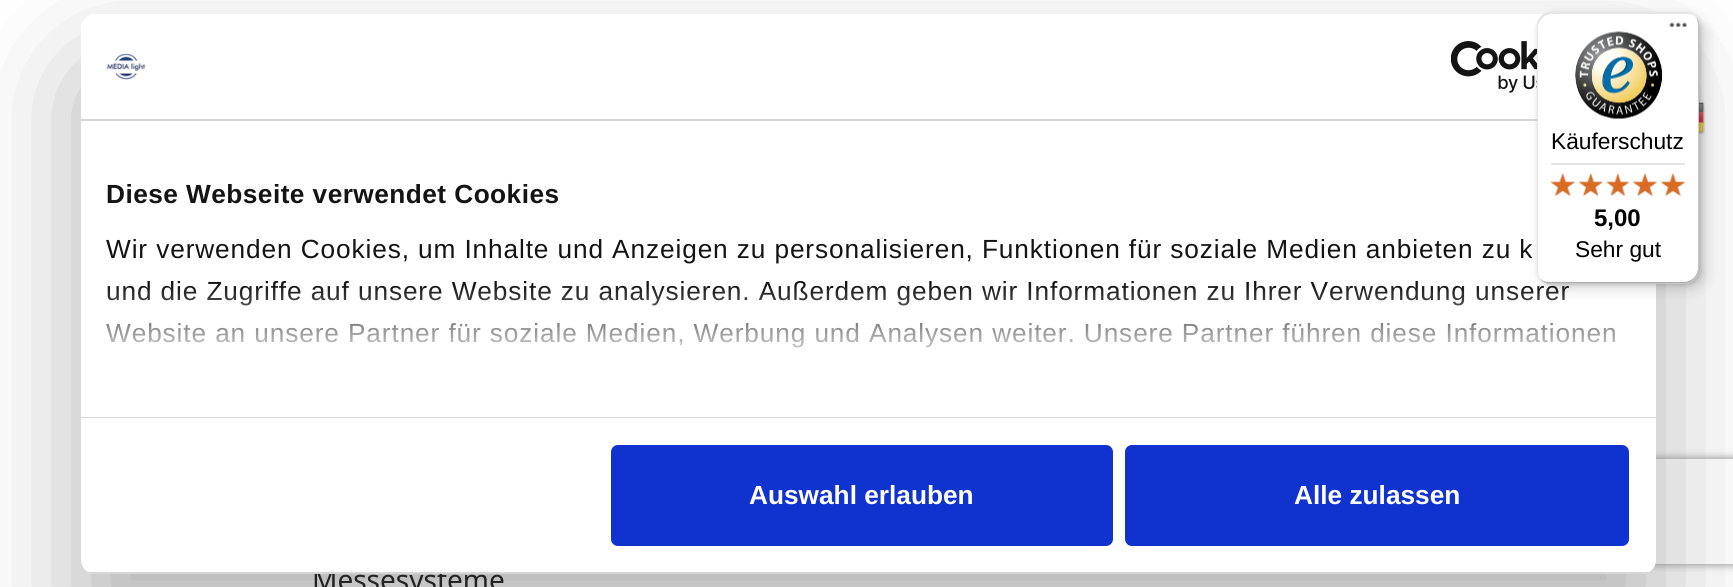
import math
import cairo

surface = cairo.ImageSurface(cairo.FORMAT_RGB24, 1733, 587)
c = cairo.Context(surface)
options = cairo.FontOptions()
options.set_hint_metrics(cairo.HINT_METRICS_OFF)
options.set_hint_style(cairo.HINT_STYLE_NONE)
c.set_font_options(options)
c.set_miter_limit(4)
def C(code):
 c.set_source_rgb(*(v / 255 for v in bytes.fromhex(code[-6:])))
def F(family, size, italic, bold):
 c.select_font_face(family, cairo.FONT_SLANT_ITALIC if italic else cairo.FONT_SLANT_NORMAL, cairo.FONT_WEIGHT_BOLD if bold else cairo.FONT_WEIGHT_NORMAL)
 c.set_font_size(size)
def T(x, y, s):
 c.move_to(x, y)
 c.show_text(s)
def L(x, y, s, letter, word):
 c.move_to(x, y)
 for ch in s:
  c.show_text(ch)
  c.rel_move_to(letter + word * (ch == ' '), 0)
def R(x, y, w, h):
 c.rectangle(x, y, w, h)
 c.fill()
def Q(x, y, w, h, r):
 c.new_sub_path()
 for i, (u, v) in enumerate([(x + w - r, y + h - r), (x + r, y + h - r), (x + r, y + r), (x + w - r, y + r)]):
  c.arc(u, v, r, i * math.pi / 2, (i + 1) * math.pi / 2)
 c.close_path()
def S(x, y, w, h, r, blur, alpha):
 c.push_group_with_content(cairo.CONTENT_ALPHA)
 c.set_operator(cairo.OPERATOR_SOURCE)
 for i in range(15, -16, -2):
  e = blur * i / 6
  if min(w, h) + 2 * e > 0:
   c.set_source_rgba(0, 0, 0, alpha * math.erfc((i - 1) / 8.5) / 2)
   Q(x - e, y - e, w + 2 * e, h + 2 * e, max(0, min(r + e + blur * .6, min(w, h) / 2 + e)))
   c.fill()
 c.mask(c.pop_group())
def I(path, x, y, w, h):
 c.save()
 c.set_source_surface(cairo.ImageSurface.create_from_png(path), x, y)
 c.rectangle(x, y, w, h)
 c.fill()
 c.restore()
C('ffffff')
c.paint()
I('1.png',1699,102,6,33)
C('000000')
S(81,70,1575,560,14,59.5,.3)
F('Noto Sans',28,0,0)
C('222222')
T(312,590,'Messesysteme')
c.save()
c.set_fill_rule(cairo.FILL_RULE_EVEN_ODD)
c.new_path()
c.move_to(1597,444)
c.line_to(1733,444)
c.line_to(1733,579)
c.line_to(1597,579)
c.close_path()
c.move_to(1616,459)
c.line_to(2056,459)
c.curve_to(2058,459,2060,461,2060,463)
c.line_to(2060,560)
c.curve_to(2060,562,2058,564,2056,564)
c.line_to(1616,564)
c.curve_to(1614,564,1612,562,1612,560)
c.line_to(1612,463)
c.curve_to(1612,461,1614,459,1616,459)
c.close_path()
c.clip()
C('808080')
S(1612,459,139,105,4,4.5,1)
c.restore()
C('ffffff')
Q(81,14,1575,560,14)
c.fill()
C('d6d6d6')
R(81,119,1456,2)
I('2.png',106,53,40,27)
I('3.png',1451,41,86,52)
R(81,417,1575,1)
F('Liberation Sans',26.25,0,1)
C('141414')
L(106,203,'Diese Webseite verwendet Cookies',.45,0)
F('Liberation Sans',26.25,0,0)
L(106,258,'Wir verwenden Cookies, um Inhalte und Anzeigen zu personalisieren, Funktionen für soziale Medien anbieten zu k',.88,0)
L(106,300,'und die Zugriffe auf unsere Website zu analysieren. Außerdem geben wir Informationen zu Ihrer Verwendung unserer',.88,0)
L(106,342,'Website an unsere Partner für soziale Medien, Werbung und Analysen weiter. Unsere Partner führen diese Informationen',.88,0)
gradient = cairo.LinearGradient(857,417,857,285)
gradient.add_color_stop_rgba(0,1,1,1,1)
gradient.add_color_stop_rgba(.5,1,1,1,.8)
gradient.add_color_stop_rgba(1,1,1,1,0)
c.set_source(gradient)
R(106,287,1509,61)
c.save()
Q(81,14,1575,560,14)
c.clip()
C('d6d6d6')
R(81,572,1575,2)
c.restore()
C('1032cf')
Q(613,447,498,97,5)
c.fill_preserve()
c.set_line_width(4)
c.stroke()
F('Liberation Sans',26.25,0,1)
C('ffffff')
T(749,504,'Auswahl erlauben')
C('1032cf')
Q(1127,447,500,97,5)
c.fill_preserve()
c.stroke()
C('ffffff')
T(1294,504,'Alle zulassen')
C('000000')
S(1542,18,163,271,14,7,.15)
S(1538,14,163,271,14,2,.15)
C('ffffff')
Q(1537,12,162,272,14)
c.fill()
c.set_source_rgba(0,0,0,0.1)
c.new_path()
c.move_to(1552,14)
c.line_to(1687,14)
c.curve_to(1690,14,1693,15,1695,17)
c.curve_to(1693,14,1689,12,1685,12)
c.line_to(1551,12)
c.curve_to(1543,12,1537,18,1537,26)
c.line_to(1537,270)
c.curve_to(1537,275,1539,279,1543,281)
c.curve_to(1540,279,1538,275,1538,271)
c.line_to(1538,28)
c.curve_to(1538,20,1545,14,1552,14)
c.close_path()
c.fill()
c.set_source_rgba(0,0,0,0.2)
c.new_path()
c.move_to(1540,278)
c.curve_to(1542,282,1546,284,1551,284)
c.line_to(1685,284)
c.curve_to(1693,284,1699,278,1699,270)
c.line_to(1699,26)
c.curve_to(1699,23,1698,20,1696,17)
c.curve_to(1697,19,1698,22,1698,24)
c.line_to(1698,268)
c.curve_to(1698,275,1691,282,1684,282)
c.line_to(1549,282)
c.curve_to(1545,282,1542,281,1540,278)
c.close_path()
c.fill()
c.set_source_rgba(0.196,0.196,0.196,0.2)
c.new_path()
c.move_to(1540,278)
c.curve_to(1542,282,1546,284,1551,284)
c.line_to(1685,284)
c.curve_to(1693,284,1699,278,1699,270)
c.line_to(1699,26)
c.curve_to(1699,22,1698,19,1695,17)
c.curve_to(1697,19,1698,22,1698,25)
c.line_to(1698,268)
c.curve_to(1698,276,1692,282,1684,282)
c.line_to(1549,282)
c.curve_to(1546,282,1542,281,1540,278)
c.close_path()
c.fill()
c.set_source_rgba(1,1,1,0.3)
c.new_path()
c.move_to(1540,278)
c.curve_to(1542,282,1546,284,1551,284)
c.line_to(1685,284)
c.curve_to(1693,284,1699,278,1699,270)
c.line_to(1699,26)
c.curve_to(1699,21,1697,17,1694,15)
c.curve_to(1696,18,1698,21,1698,25)
c.line_to(1698,269)
c.curve_to(1698,276,1692,283,1684,283)
c.line_to(1550,283)
c.curve_to(1546,283,1542,281,1540,278)
c.close_path()
c.fill()
I('4.png',1669,22,18,5)
I('5.png',1575,31,88,88)
F('Liberation Sans',22.75,0,0)
C('000000')
T(1551,149,'Käuferschutz')
C('e5e5e5')
R(1551,163,134,2)
I('6.png',1550,173,25,23)
I('7.png',1579,173,24,23)
I('8.png',1606,174,23,22)
I('9.png',1633,173,24,23)
I('10.png',1661,173,24,23)
I('11.png',1550,173,25,23)
I('12.png',1578,173,25,23)
I('13.png',1606,173,24,23)
I('14.png',1632,173,25,23)
I('15.png',1660,173,26,23)
F('Liberation Sans',24,0,1)
C('000000')
T(1594,226,'5,00')
F('Liberation Sans',22.75,0,0)
T(1575,257,'Sehr gut')
surface.write_to_png('o.png')
